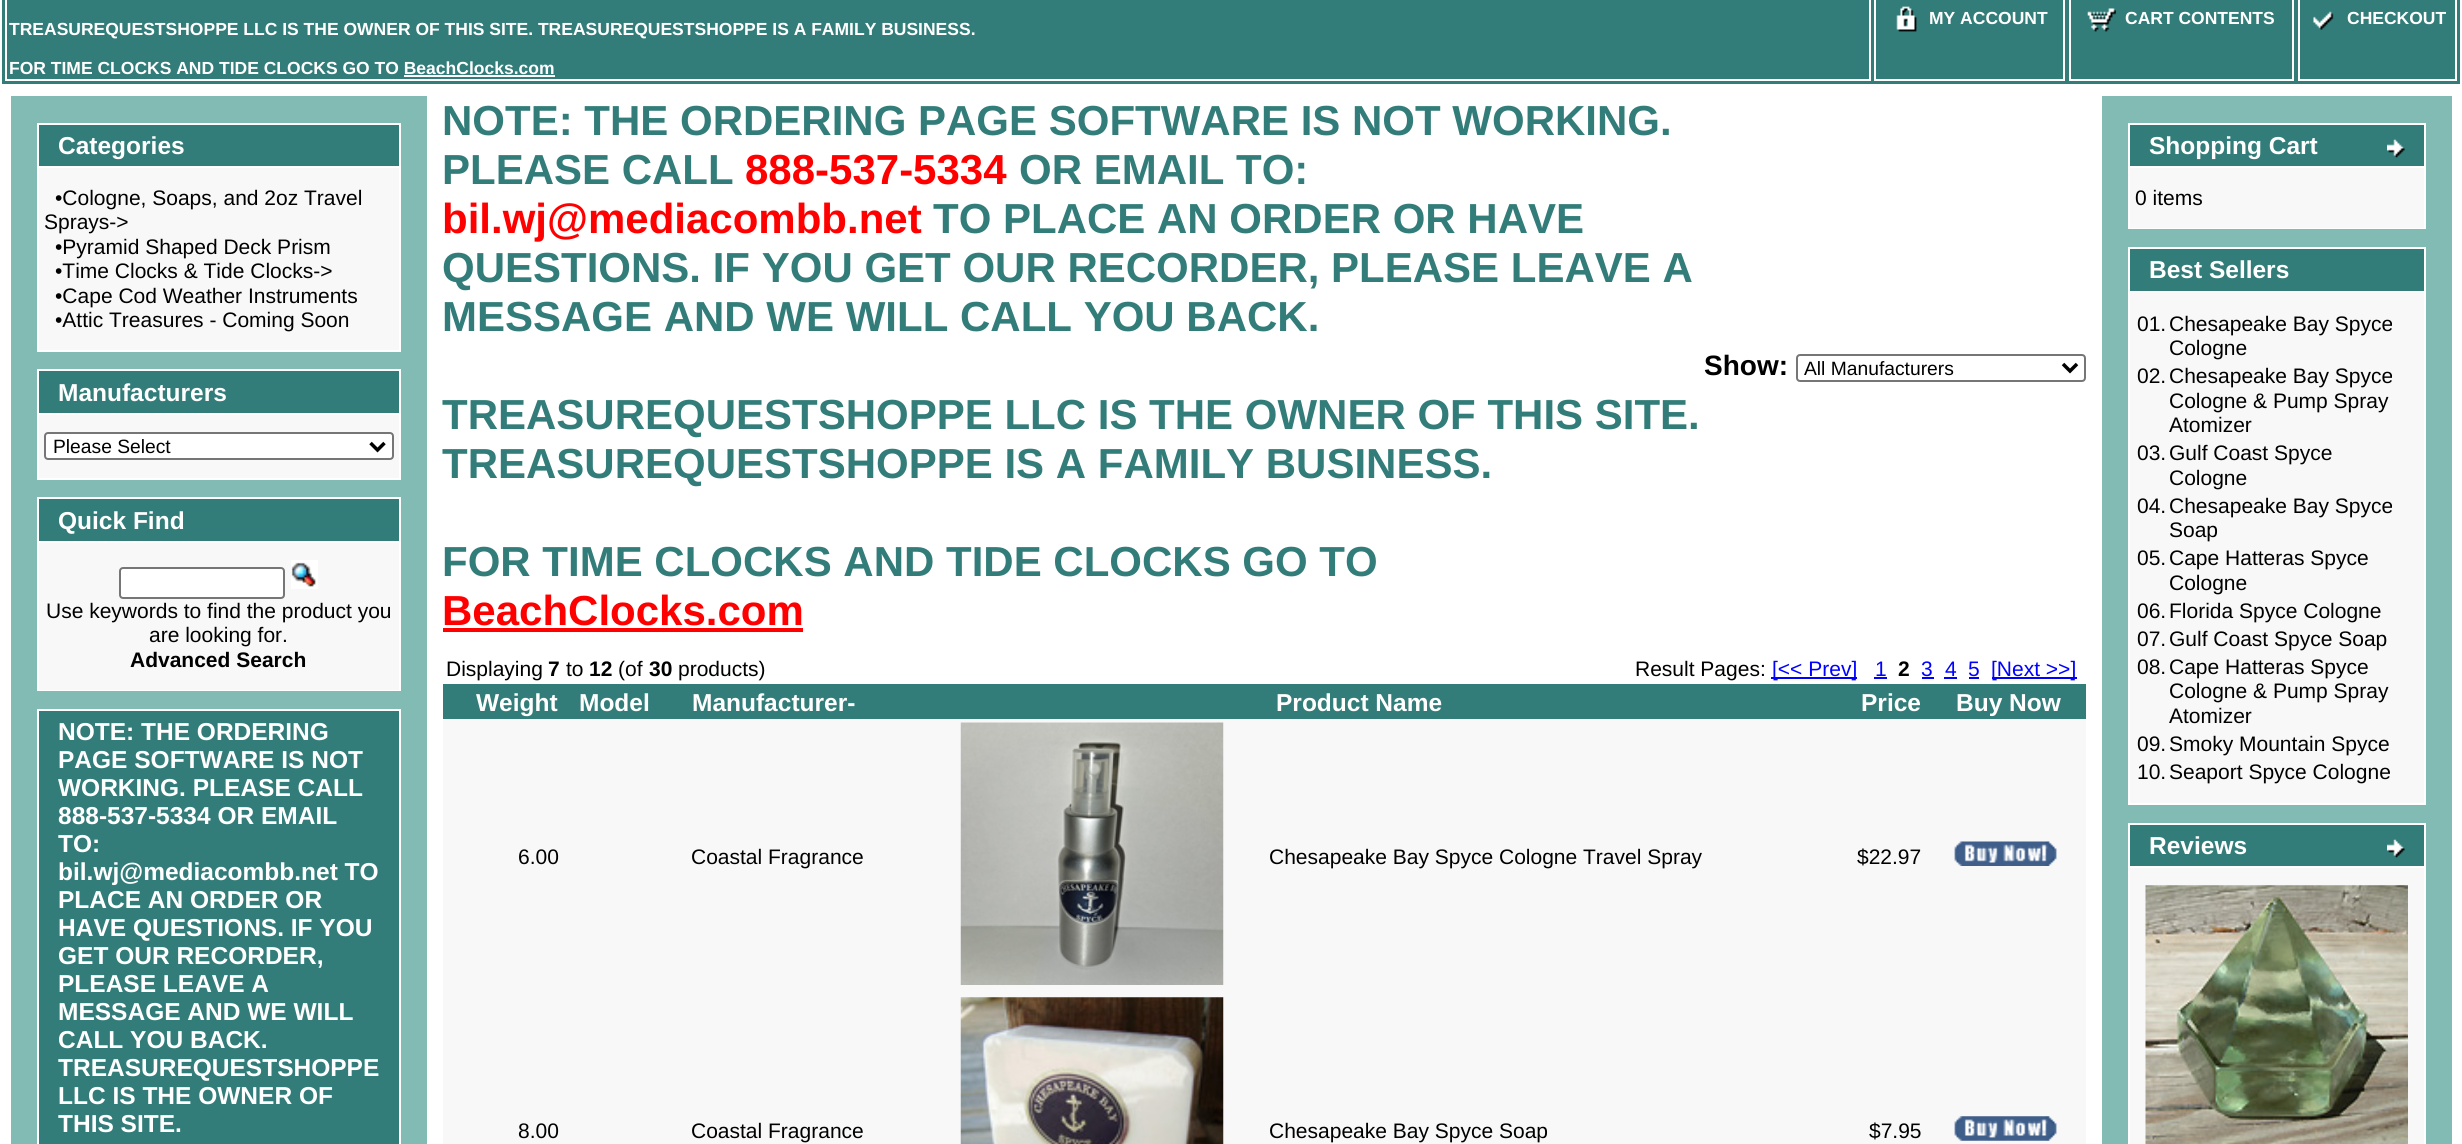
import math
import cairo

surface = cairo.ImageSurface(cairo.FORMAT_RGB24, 2462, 1144)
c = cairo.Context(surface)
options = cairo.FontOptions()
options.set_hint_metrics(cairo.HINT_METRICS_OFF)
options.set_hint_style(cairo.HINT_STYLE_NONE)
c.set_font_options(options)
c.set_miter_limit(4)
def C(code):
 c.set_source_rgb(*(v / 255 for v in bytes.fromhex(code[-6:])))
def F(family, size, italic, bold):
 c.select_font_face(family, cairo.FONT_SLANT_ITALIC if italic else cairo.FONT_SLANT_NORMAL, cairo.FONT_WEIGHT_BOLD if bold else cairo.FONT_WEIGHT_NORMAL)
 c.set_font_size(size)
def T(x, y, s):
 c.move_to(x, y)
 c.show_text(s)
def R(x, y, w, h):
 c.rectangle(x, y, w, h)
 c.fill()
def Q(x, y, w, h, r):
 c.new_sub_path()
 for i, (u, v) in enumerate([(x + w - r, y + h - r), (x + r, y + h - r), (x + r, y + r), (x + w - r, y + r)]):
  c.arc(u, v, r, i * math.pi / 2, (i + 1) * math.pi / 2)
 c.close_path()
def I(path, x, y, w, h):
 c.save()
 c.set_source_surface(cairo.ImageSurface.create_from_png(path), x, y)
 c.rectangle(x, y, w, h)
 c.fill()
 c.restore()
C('ffffff')
c.paint()
C('327d79')
R(2,0,2458,84)
c.rectangle(1875,-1,189,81)
C('ffffff')
c.stroke()
I('1.png',1896,6,21,26)
F('Liberation Sans',17.5,0,1)
T(1929,24,'MY ACCOUNT')
c.rectangle(2070,-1,223,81)
c.stroke()
I('2.png',2087,8,29,24)
T(2125,24,'CART CONTENTS')
c.rectangle(2299,-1,157,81)
c.stroke()
I('3.png',2313,11,21,19)
T(2347,24,'CHECKOUT')
c.rectangle(6,-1,1864,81)
c.stroke()
T(9,35,'TREASUREQUESTSHOPPE LLC IS THE OWNER OF THIS SITE. TREASUREQUESTSHOPPE IS A FAMILY BUSINESS.')
T(9,74,'FOR TIME CLOCKS AND TIDE CLOCKS GO TO BeachClocks.com')
R(404,75,151,2)
C('82bbb4')
R(11,96,416,1048)
C('327d79')
R(39,125,360,41)
C('ffffff')
R(37,123,364,2)
R(37,123,2,43)
F('Liberation Sans',24.5,0,1)
T(58,154,'Categories')
R(399,123,2,43)
R(37,166,364,186)
C('f8f8f9')
R(39,168,360,182)
F('Liberation Sans',21,0,0)
C('000000')
T(55,205,'•Cologne, Soaps, and 2oz Travel')
T(44,229,'Sprays->')
T(55,254,'•Pyramid Shaped Deck Prism')
T(55,278,'•Time Clocks & Tide Clocks->')
T(55,303,'•Cape Cod Weather Instruments')
T(55,327,'•Attic Treasures - Coming Soon')
C('327d79')
R(39,371,360,42)
C('ffffff')
R(37,369,364,2)
R(37,369,2,44)
F('Liberation Sans',24.5,0,1)
T(58,401,'Manufacturers')
R(399,369,2,44)
R(37,413,364,67)
C('f8f8f9')
R(39,415,360,63)
C('ffffff')
Q(45,433,348,26,3)
c.fill_preserve()
C('767676')
c.stroke()
c.new_path()
c.move_to(370.5,443)
c.line_to(377.5,450)
c.line_to(384.5,443)
C('000000')
c.set_line_width(3.5)
c.stroke()
F('Liberation Sans',19.25,0,0)
T(53,453,'Please Select')
C('327d79')
R(39,499,360,42)
C('ffffff')
R(37,497,364,2)
R(37,497,2,44)
F('Liberation Sans',24.5,0,1)
T(58,529,'Quick Find')
R(399,497,2,44)
R(37,541,364,150)
C('f8f8f9')
R(39,543,360,147)
C('ffffff')
Q(120,568,164,30,3)
c.fill_preserve()
C('767676')
c.set_line_width(2)
c.stroke()
I('4.png',291,560,27,29)
F('Liberation Sans',21,0,0)
C('000000')
T(46,618,'Use keywords to find the product you')
T(149,642,'are looking for.')
F('Liberation Sans',21,0,1)
T(130,667,'Advanced Search')
C('327d79')
R(39,711,360,433)
C('ffffff')
R(37,709,364,2)
R(37,709,2,435)
F('Liberation Sans',24.5,0,1)
T(58,740,'NOTE: THE ORDERING')
T(58,768,'PAGE SOFTWARE IS NOT')
T(58,796,'WORKING. PLEASE CALL')
T(58,824,'888-537-5334 OR EMAIL')
T(58,852,'TO:')
T(58,880,'bil.wj@mediacombb.net TO')
T(58,908,'PLACE AN ORDER OR')
T(58,936,'HAVE QUESTIONS. IF YOU')
T(58,964,'GET OUR RECORDER,')
T(58,992,'PLEASE LEAVE A')
T(58,1020,'MESSAGE AND WE WILL')
T(58,1048,'CALL YOU BACK.')
T(58,1076,'TREASUREQUESTSHOPPE')
T(58,1104,'LLC IS THE OWNER OF')
T(58,1132,'THIS SITE.')
R(399,709,2,435)
F('Liberation Sans',42,0,1)
C('327d79')
T(442,135,'NOTE: THE ORDERING PAGE SOFTWARE IS NOT WORKING.')
T(442,184,'PLEASE CALL')
C('ff0000')
T(745,184,'888-537-5334')
C('327d79')
T(1019,184,'OR EMAIL TO:')
C('ff0000')
T(442,233,'bil.wj@mediacombb.net')
C('327d79')
T(933,233,'TO PLACE AN ORDER OR HAVE')
T(442,282,'QUESTIONS. IF YOU GET OUR RECORDER, PLEASE LEAVE A')
T(442,331,'MESSAGE AND WE WILL CALL YOU BACK.')
T(442,429,'TREASUREQUESTSHOPPE LLC IS THE OWNER OF THIS SITE.')
T(442,478,'TREASUREQUESTSHOPPE IS A FAMILY BUSINESS.')
T(442,576,'FOR TIME CLOCKS AND TIDE CLOCKS GO TO')
C('ff0000')
T(442,625,'BeachClocks.com')
R(443,628,360,4)
F('Liberation Sans',28,0,1)
C('000000')
T(1704,375,'Show:')
Q(1797,355,288,26,3)
C('767676')
c.stroke()
c.new_path()
c.move_to(2063,364)
c.line_to(2070,371)
c.line_to(2077,364)
C('000000')
c.set_line_width(3.5)
c.stroke()
F('Liberation Sans',19.25,0,0)
T(1804,375,'All Manufacturers')
F('Liberation Sans',21,0,0)
T(446,676,'Displaying')
F('Liberation Sans',21,0,1)
T(548,676,'7')
F('Liberation Sans',21,0,0)
T(566,676,'to')
F('Liberation Sans',21,0,1)
T(589,676,'12')
F('Liberation Sans',21,0,0)
T(618,676,'(of')
F('Liberation Sans',21,0,1)
T(649,676,'30')
F('Liberation Sans',21,0,0)
T(678,676,'products)')
T(1635,676,'Result Pages:')
C('0000ff')
R(1771,677,86,2)
T(1772,676,'[<< Prev]')
T(1875,676,'1')
R(1874,677,13,2)
F('Liberation Sans',21,0,1)
C('000000')
T(1898,676,'2')
F('Liberation Sans',21,0,0)
C('0000ff')
T(1921,676,'3')
R(1922,677,12,2)
T(1945,676,'4')
R(1944,677,13,2)
T(1968,676,'5')
R(1969,677,10,2)
R(1992,677,85,2)
T(1991,676,'[Next >>]')
C('327d79')
R(443,684,1643,35)
F('Liberation Sans',24.5,0,1)
C('ffffff')
T(476,711,'Weight')
T(579,711,'Model')
T(692,711,'Manufacturer-')
T(1276,711,'Product Name')
T(1861,711,'Price')
T(1956,711,'Buy Now')
C('f8f8f9')
R(443,719,1643,425)
F('Liberation Sans',21,0,0)
C('000000')
T(518,864,'6.00')
T(691,864,'Coastal Fragrance')
I('5.png',960,722,264,263)
T(1269,864,'Chesapeake Bay Spyce Cologne Travel Spray')
T(1857,864,'$22.97')
I('6.png',1954,841,103,25)
T(518,1138,'8.00')
T(691,1138,'Coastal Fragrance')
I('7.png',960,997,264,147)
T(1269,1138,'Chesapeake Bay Spyce Soap')
T(1869,1138,'$7.95')
I('8.png',1954,1116,103,25)
C('82bbb4')
R(2102,96,350,1048)
C('327d79')
R(2130,125,294,41)
C('ffffff')
R(2128,123,298,2)
R(2128,123,2,43)
F('Liberation Sans',24.5,0,1)
T(2149,154,'Shopping Cart')
R(2424,123,2,43)
I('9.png',2387,139,18,19)
R(2128,166,298,63)
C('f8f8f9')
R(2130,168,294,60)
F('Liberation Sans',21,0,0)
C('000000')
T(2135,205,'0 items')
C('327d79')
R(2130,249,294,42)
C('ffffff')
R(2128,247,298,2)
R(2128,247,2,44)
F('Liberation Sans',24.5,0,1)
T(2149,278,'Best Sellers')
R(2424,247,2,44)
R(2128,291,298,514)
C('f8f8f9')
R(2130,292,294,511)
F('Liberation Sans',21,0,0)
C('000000')
T(2137,331,'01.')
T(2169,331,'Chesapeake Bay Spyce')
T(2169,355,'Cologne')
T(2137,383,'02.')
T(2169,383,'Chesapeake Bay Spyce')
T(2169,408,'Cologne & Pump Spray')
T(2169,432,'Atomizer')
T(2137,460,'03.')
T(2169,460,'Gulf Coast Spyce')
T(2169,485,'Cologne')
T(2137,513,'04.')
T(2169,513,'Chesapeake Bay Spyce')
T(2169,537,'Soap')
T(2137,565,'05.')
T(2169,565,'Cape Hatteras Spyce')
T(2169,590,'Cologne')
T(2137,618,'06.')
T(2169,618,'Florida Spyce Cologne')
T(2137,646,'07.')
T(2169,646,'Gulf Coast Spyce Soap')
T(2137,674,'08.')
T(2169,674,'Cape Hatteras Spyce')
T(2169,698,'Cologne & Pump Spray')
T(2169,723,'Atomizer')
T(2137,751,'09.')
T(2169,751,'Smoky Mountain Spyce')
T(2137,779,'10.')
T(2169,779,'Seaport Spyce Cologne')
C('327d79')
R(2130,825,294,41)
C('ffffff')
R(2128,823,298,2)
R(2128,823,2,43)
F('Liberation Sans',24.5,0,1)
T(2149,854,'Reviews')
R(2424,823,2,43)
I('9.png',2387,839,18,19)
R(2128,866,298,278)
C('f8f8f9')
R(2130,868,294,276)
I('10.png',2145,885,263,259)
surface.write_to_png('o.png')
